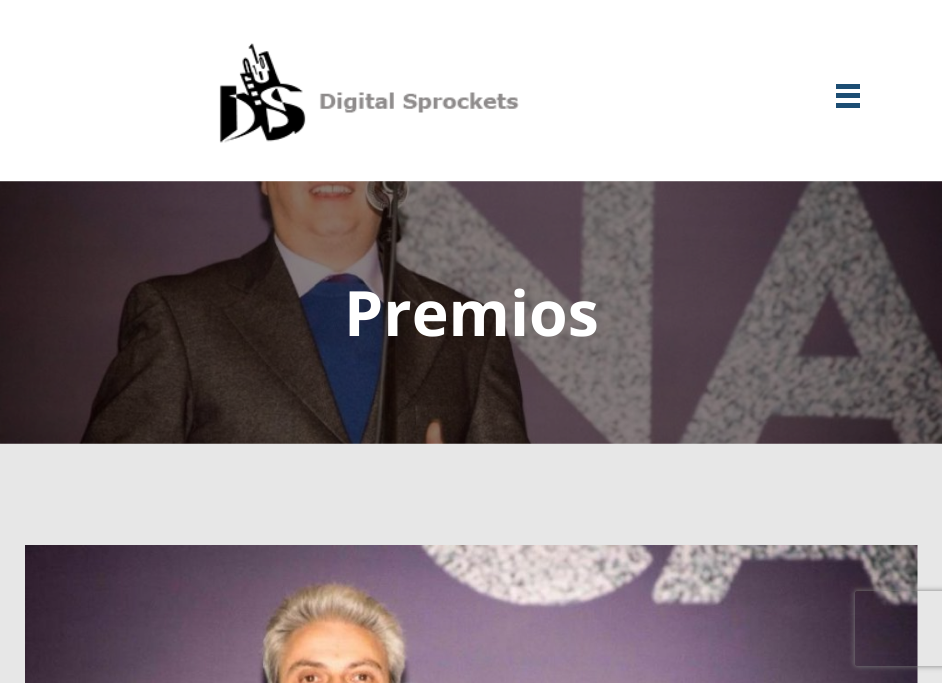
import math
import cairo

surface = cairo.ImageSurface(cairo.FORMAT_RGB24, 942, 683)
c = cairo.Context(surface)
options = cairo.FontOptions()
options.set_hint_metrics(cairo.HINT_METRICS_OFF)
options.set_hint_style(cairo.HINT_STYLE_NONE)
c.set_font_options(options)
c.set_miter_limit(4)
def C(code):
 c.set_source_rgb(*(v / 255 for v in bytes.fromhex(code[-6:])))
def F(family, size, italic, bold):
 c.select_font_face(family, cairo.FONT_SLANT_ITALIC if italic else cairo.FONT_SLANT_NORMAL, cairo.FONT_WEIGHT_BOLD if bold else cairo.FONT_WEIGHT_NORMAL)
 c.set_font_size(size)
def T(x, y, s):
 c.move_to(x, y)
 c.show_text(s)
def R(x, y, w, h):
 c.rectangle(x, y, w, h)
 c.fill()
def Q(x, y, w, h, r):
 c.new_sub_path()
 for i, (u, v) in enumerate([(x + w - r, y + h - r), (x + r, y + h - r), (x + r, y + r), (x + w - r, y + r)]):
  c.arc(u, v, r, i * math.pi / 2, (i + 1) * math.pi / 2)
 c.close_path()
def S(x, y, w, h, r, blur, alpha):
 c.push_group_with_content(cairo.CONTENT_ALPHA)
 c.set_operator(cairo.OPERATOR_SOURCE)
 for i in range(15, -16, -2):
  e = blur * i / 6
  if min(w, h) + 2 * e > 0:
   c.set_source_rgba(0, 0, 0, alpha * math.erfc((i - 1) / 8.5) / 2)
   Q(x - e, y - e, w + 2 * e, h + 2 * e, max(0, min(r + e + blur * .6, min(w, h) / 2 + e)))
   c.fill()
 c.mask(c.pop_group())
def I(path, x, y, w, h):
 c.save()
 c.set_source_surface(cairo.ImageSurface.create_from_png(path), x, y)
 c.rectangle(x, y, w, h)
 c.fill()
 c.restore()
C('e7e7e7')
c.paint()
C('ffffff')
R(0,0,942,181)
I('1.png',219,43,300,100)
C('1c4d73')
R(836,84,24,5)
R(836,93,24,5)
R(836,103,24,5)
I('2.png',0,181,942,263)
F('Open Sans',62.5,0,1)
C('ffffff')
T(344,336,'Premios')
I('3.png',25,545,893,138)
c.save()
c.set_fill_rule(cairo.FILL_RULE_EVEN_ODD)
c.new_path()
c.move_to(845,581)
c.line_to(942,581)
c.line_to(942,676)
c.line_to(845,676)
c.close_path()
c.move_to(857.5,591)
c.line_to(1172.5,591)
c.curve_to(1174,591,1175,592,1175,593.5)
c.line_to(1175,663.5)
c.curve_to(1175,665,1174,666,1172.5,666)
c.line_to(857.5,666)
c.curve_to(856,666,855,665,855,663.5)
c.line_to(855,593.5)
c.curve_to(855,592,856,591,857.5,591)
c.close_path()
c.clip()
C('808080')
S(855,591,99,75,2.5,3,1)
c.restore()
surface.write_to_png('o.png')
